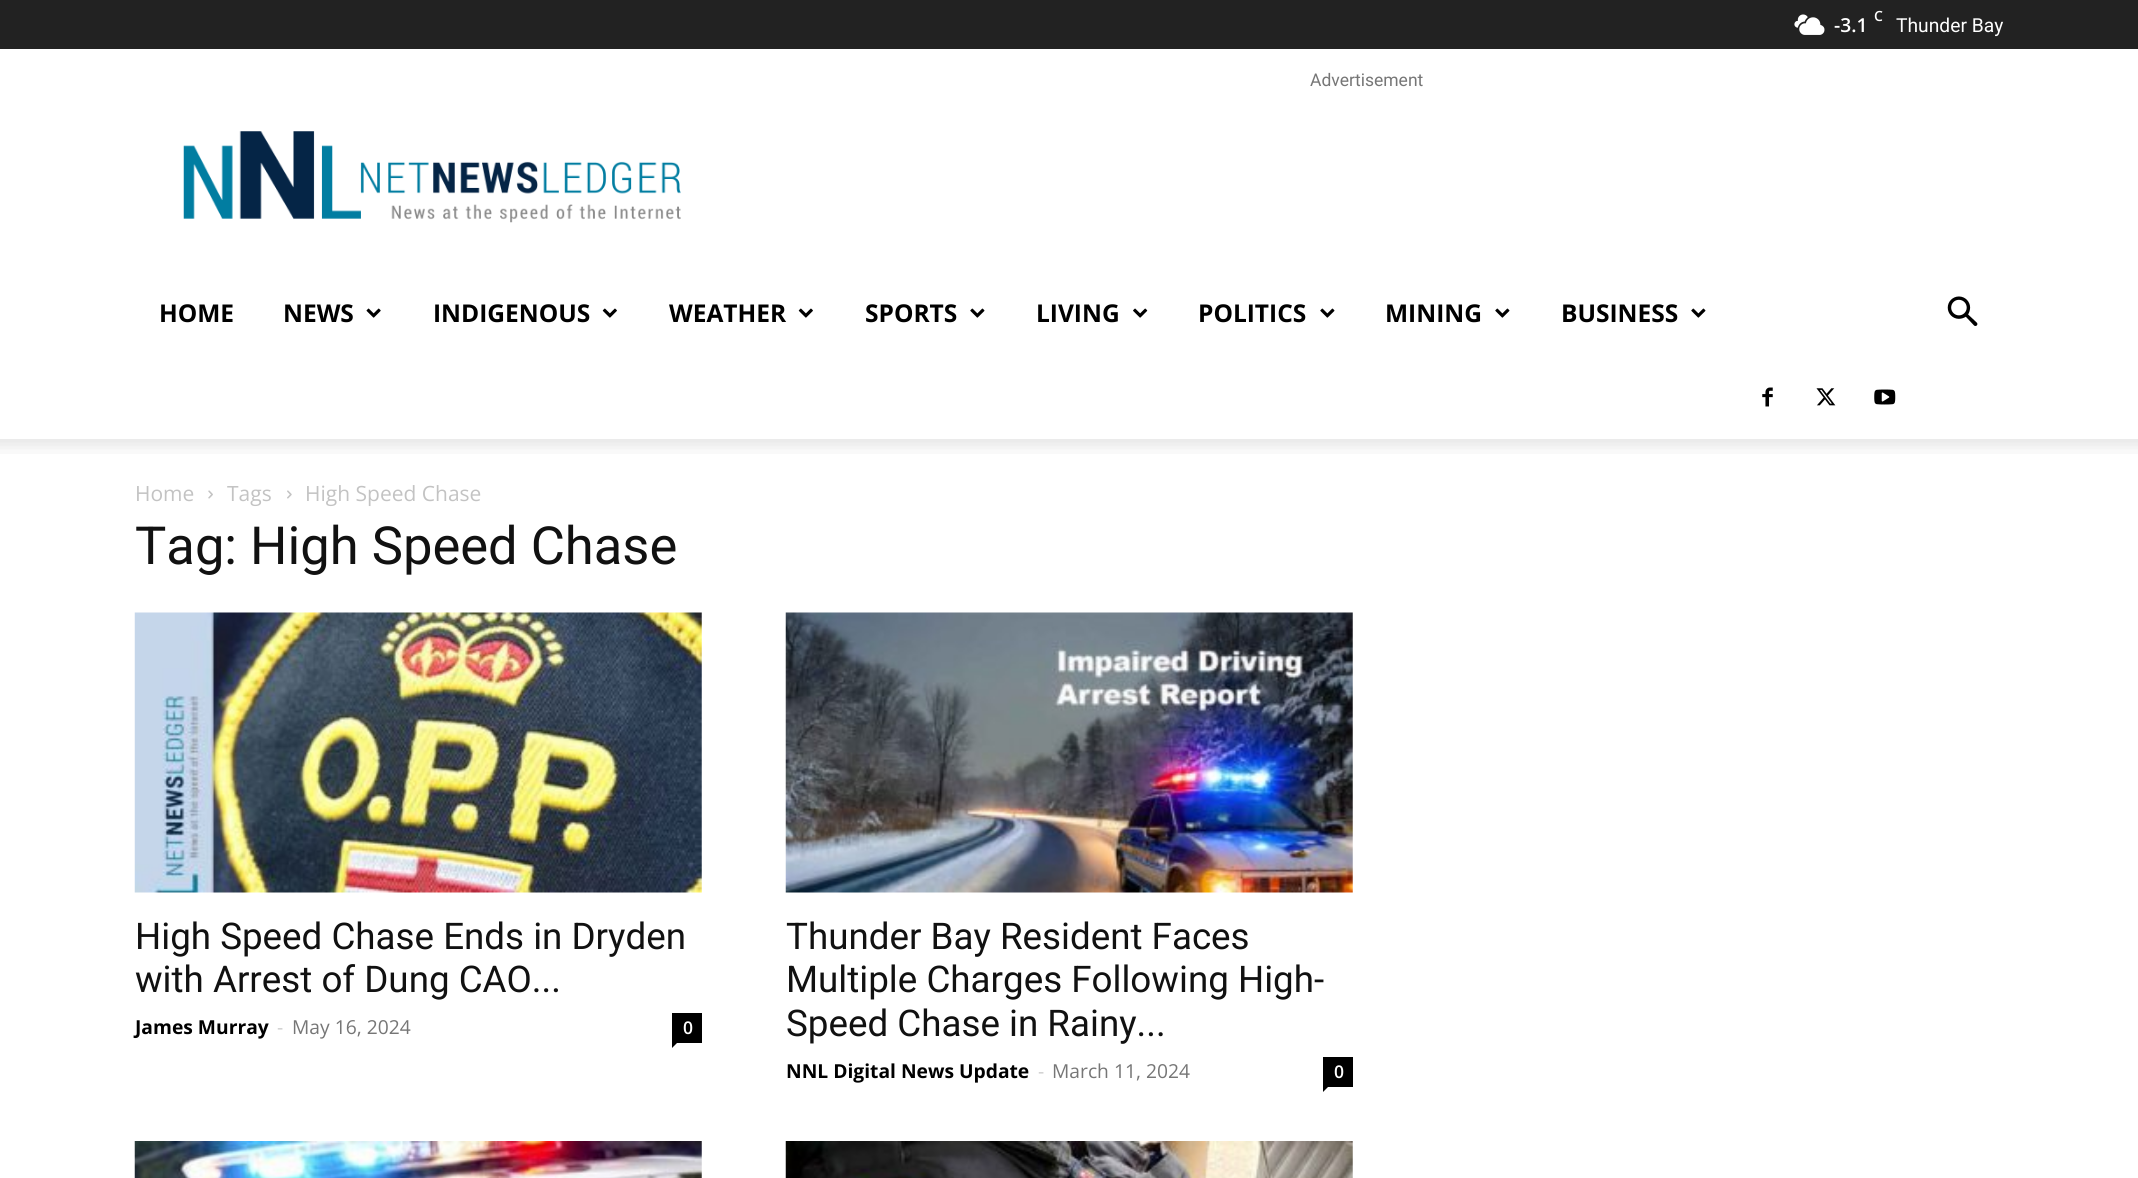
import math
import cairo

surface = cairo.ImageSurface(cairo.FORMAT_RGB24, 2138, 1178)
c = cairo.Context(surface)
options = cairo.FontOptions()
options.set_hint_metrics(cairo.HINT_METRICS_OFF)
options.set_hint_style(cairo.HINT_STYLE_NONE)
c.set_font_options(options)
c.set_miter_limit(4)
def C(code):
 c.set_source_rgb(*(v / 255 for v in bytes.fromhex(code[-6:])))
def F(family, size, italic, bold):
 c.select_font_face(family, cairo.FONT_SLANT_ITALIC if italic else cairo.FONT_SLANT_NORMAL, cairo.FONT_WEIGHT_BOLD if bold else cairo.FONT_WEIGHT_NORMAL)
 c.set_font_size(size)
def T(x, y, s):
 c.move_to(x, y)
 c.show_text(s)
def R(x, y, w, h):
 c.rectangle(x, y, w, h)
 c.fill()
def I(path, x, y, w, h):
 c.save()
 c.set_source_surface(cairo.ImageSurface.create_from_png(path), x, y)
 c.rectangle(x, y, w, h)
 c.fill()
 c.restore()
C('ffffff')
c.paint()
C('222222')
R(0,0,2138,49)
I('1.png',1794,14,31,21)
F('Open Sans SemiBold',14,0,0)
C('ffffff')
T(1874,21,'C')
F('Open Sans SemiBold',19.25,0,0)
T(1834,32,'-3.1')
F('Roboto',19.25,0,0)
T(1896,32,'Thunder Bay')
F('Roboto',17.5,0,0)
C('767676')
T(1310,86,'Advertisement')
I('2.png',183,131,498,92)
F('Open Sans',24.5,0,1)
C('000000')
T(159,322,'HOME')
T(283,322,'NEWS')
I('3.png',366,308,15,10)
T(433,322,'INDIGENOUS')
I('4.png',602,308,15,10)
T(669,322,'WEATHER')
I('4.png',798,308,15,10)
T(865,322,'SPORTS')
I('5.png',970,308,15,10)
T(1036,322,'LIVING')
I('6.png',1133,308,15,10)
T(1198,322,'POLITICS')
I('5.png',1320,308,15,10)
T(1385,322,'MINING')
I('5.png',1495,308,15,10)
T(1561,322,'BUSINESS')
I('5.png',1691,308,15,10)
I('7.png',1947,296,31,30)
I('8.png',1762,387,11,20)
I('9.png',1816,388,20,18)
I('10.png',1874,389,22,16)
I('11.png',0,439,2138,15)
F('Open Sans',21,0,0)
C('c3c3c3')
T(135,501,'Home')
I('12.png',208,490,5,9)
T(227,501,'Tags')
I('13.png',287,490,5,9)
T(305,501,'High Speed Chase')
F('Roboto',52.5,0,0)
C('111111')
T(135,564,'Tag: High Speed Chase')
I('14.png',134,612,568,281)
F('Roboto',36.75,0,0)
T(135,949,'High Speed Chase Ends in Dryden')
T(135,992,'with Arrest of Dung CAO...')
F('Open Sans',19.25,0,1)
C('000000')
T(135,1034,'James Murray')
F('Open Sans',19.25,0,0)
C('cccccc')
T(277,1034,'-')
C('767676')
T(292,1034,'May 16, 2024')
C('000000')
R(672,1013,30,30)
F('Open Sans SemiBold',17.5,0,0)
C('ffffff')
T(683,1034,'0')
C('000000')
c.new_path()
c.move_to(672,1043)
c.line_to(677,1043)
c.line_to(672,1048)
c.close_path()
c.fill()
I('15.png',785,612,568,281)
F('Roboto',36.75,0,0)
C('111111')
T(786,949,'Thunder Bay Resident Faces')
T(786,992,'Multiple Charges Following High-')
T(786,1036,'Speed Chase in Rainy...')
F('Open Sans',19.25,0,1)
C('000000')
T(786,1078,'NNL Digital News Update')
F('Open Sans',19.25,0,0)
C('cccccc')
T(1038,1078,'-')
C('767676')
T(1052,1078,'March 11, 2024')
C('000000')
R(1323,1057,30,30)
F('Open Sans SemiBold',17.5,0,0)
C('ffffff')
T(1334,1078,'0')
C('000000')
c.new_path()
c.move_to(1323,1087)
c.line_to(1328,1087)
c.line_to(1323,1092)
c.close_path()
c.fill()
I('16.png',134,1141,568,37)
I('17.png',785,1141,568,37)
surface.write_to_png('o.png')
